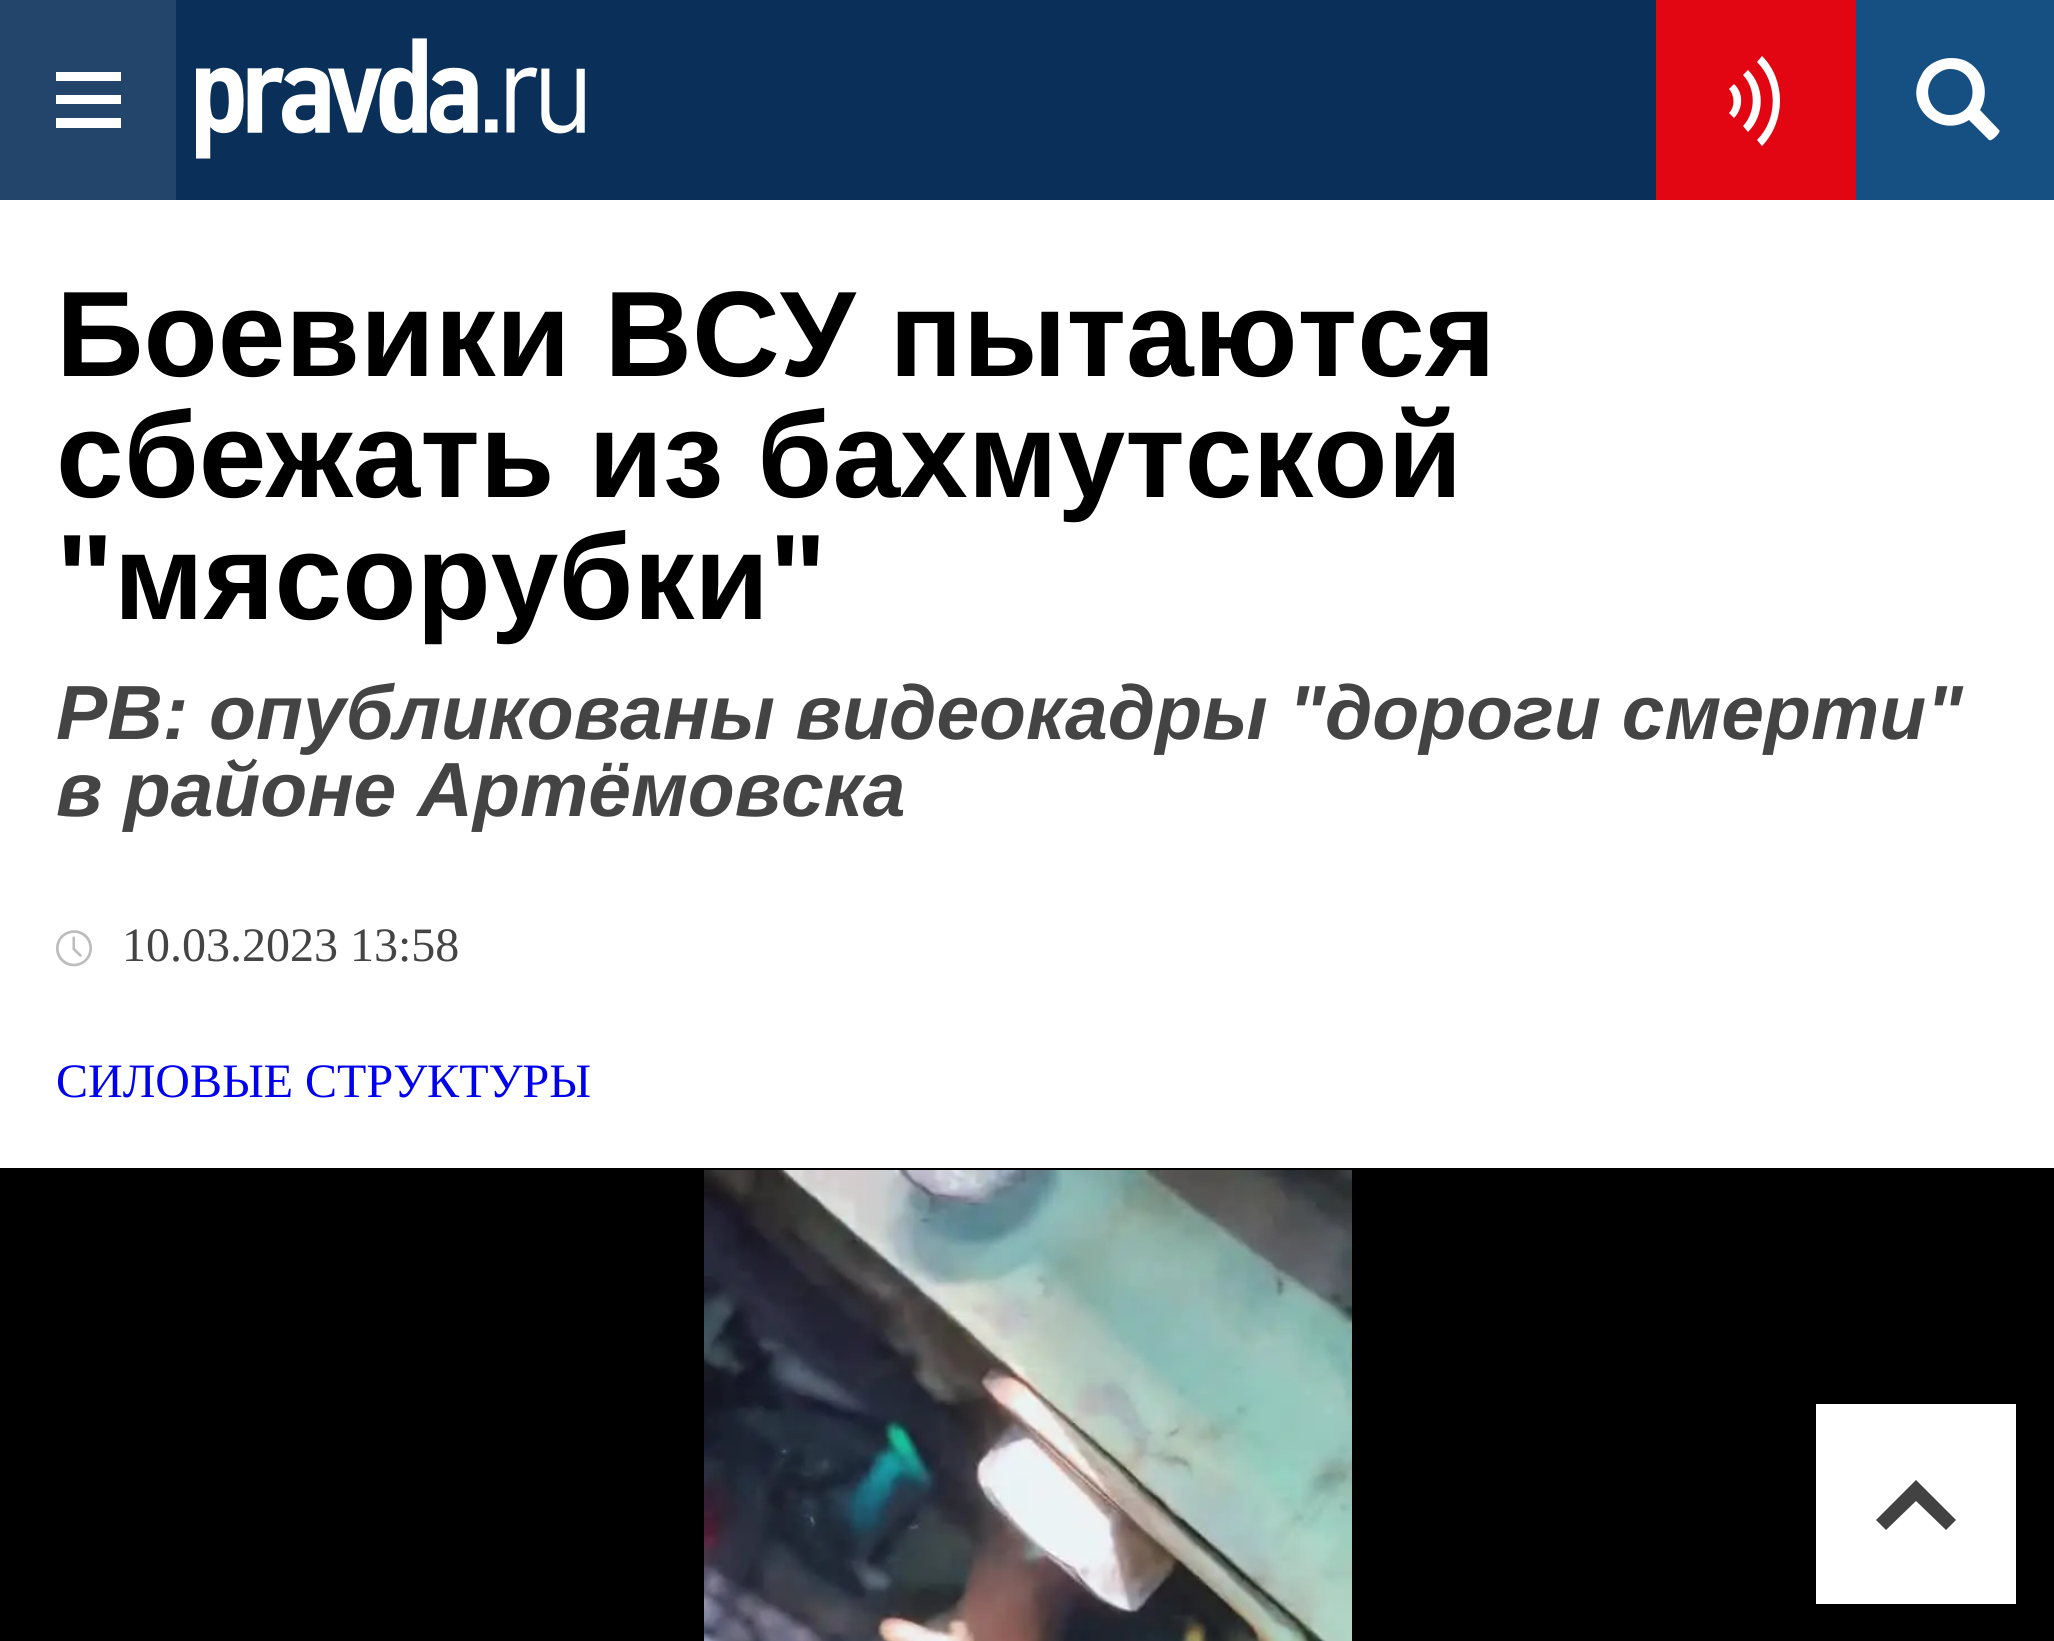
import math
import cairo

surface = cairo.ImageSurface(cairo.FORMAT_RGB24, 2054, 1641)
c = cairo.Context(surface)
options = cairo.FontOptions()
options.set_hint_metrics(cairo.HINT_METRICS_OFF)
options.set_hint_style(cairo.HINT_STYLE_NONE)
c.set_font_options(options)
c.set_miter_limit(4)
def C(code):
 c.set_source_rgb(*(v / 255 for v in bytes.fromhex(code[-6:])))
def F(family, size, italic, bold):
 c.select_font_face(family, cairo.FONT_SLANT_ITALIC if italic else cairo.FONT_SLANT_NORMAL, cairo.FONT_WEIGHT_BOLD if bold else cairo.FONT_WEIGHT_NORMAL)
 c.set_font_size(size)
def T(x, y, s):
 c.move_to(x, y)
 c.show_text(s)
def L(x, y, s, letter, word):
 c.move_to(x, y)
 for ch in s:
  c.show_text(ch)
  c.rel_move_to(letter + word * (ch == ' '), 0)
def R(x, y, w, h):
 c.rectangle(x, y, w, h)
 c.fill()
def I(path, x, y, w, h):
 c.save()
 c.set_source_surface(cairo.ImageSurface.create_from_png(path), x, y)
 c.rectangle(x, y, w, h)
 c.fill()
 c.restore()
C('ffffff')
c.paint()
C('0a305a')
R(176,0,1480,200)
C('23456b')
R(0,0,176,200)
C('ffffff')
c.new_path()
c.move_to(56,72)
c.line_to(121,72)
c.line_to(121,81)
c.line_to(56,81)
c.close_path()
c.move_to(56,95)
c.line_to(121,95)
c.line_to(121,104)
c.line_to(56,104)
c.close_path()
c.move_to(56,118)
c.line_to(121,118)
c.line_to(121,128)
c.line_to(56,128)
c.close_path()
c.fill()
I('1.png',196,38,389,121)
C('e20613')
R(1656,0,200,200)
C('ffffff')
c.new_path()
c.move_to(1734,118)
c.line_to(1729,113)
c.curve_to(1735,107,1735,96,1729,89)
c.line_to(1734,84)
c.curve_to(1744,93,1743,109,1734,118)
c.close_path()
c.move_to(1762,146)
c.line_to(1757,140)
c.curve_to(1778,119,1778,83,1757,62)
c.line_to(1762,56)
c.curve_to(1786,80,1786,121,1762,146)
c.close_path()
c.move_to(1748,132)
c.line_to(1743,126)
c.curve_to(1756,112,1756,89,1743,75)
c.line_to(1748,70)
c.curve_to(1765,87,1765,115,1748,132)
c.close_path()
c.fill()
C('164f82')
R(1856,0,198,200)
C('ffffff')
c.new_path()
c.move_to(1999,130)
c.line_to(1980,110)
c.curve_to(1990,93,1984,70,1966,61)
c.curve_to(1957,57,1946,57,1937,61)
c.curve_to(1930,64,1924,69,1921,76)
c.curve_to(1903,107,1940,139,1969,120)
c.line_to(1989,140)
c.curve_to(1992,142,2002,131,1999,130)
c.close_path()
c.move_to(1950,115)
c.curve_to(1929,115,1920,87,1937,74)
c.curve_to(1941,71,1945,69,1950,69)
c.curve_to(1980,69,1980,115,1950,115)
c.close_path()
c.fill()
F('Liberation Sans',121.6,0,1)
C('000000')
T(56,376,'Боевики ВСУ пытаются')
T(56,497,'сбежать из бахмутской')
T(56,619,'"мясорубки"')
F('Liberation Sans',76.8,1,1)
C('444444')
L(56,739,'РВ: опубликованы видеокадры "дороги смерти"',0,-.5)
T(56,816,'в районе Артёмовска')
I('2.png',56,930,36,37)
F('Liberation Serif',48,0,0)
T(122,961,'10.03.2023 13:58')
C('0000ee')
T(56,1097,'СИЛОВЫЕ СТРУКТУРЫ')
I('3.png',0,1168,2054,473)
C('ffffff')
R(1816,1404,200,200)
C('424242')
c.new_path()
c.move_to(1916,1480)
c.line_to(1956,1520)
c.line_to(1946,1530)
c.line_to(1916,1501)
c.line_to(1886,1530)
c.line_to(1876,1520)
c.close_path()
c.fill()
surface.write_to_png('o.png')
